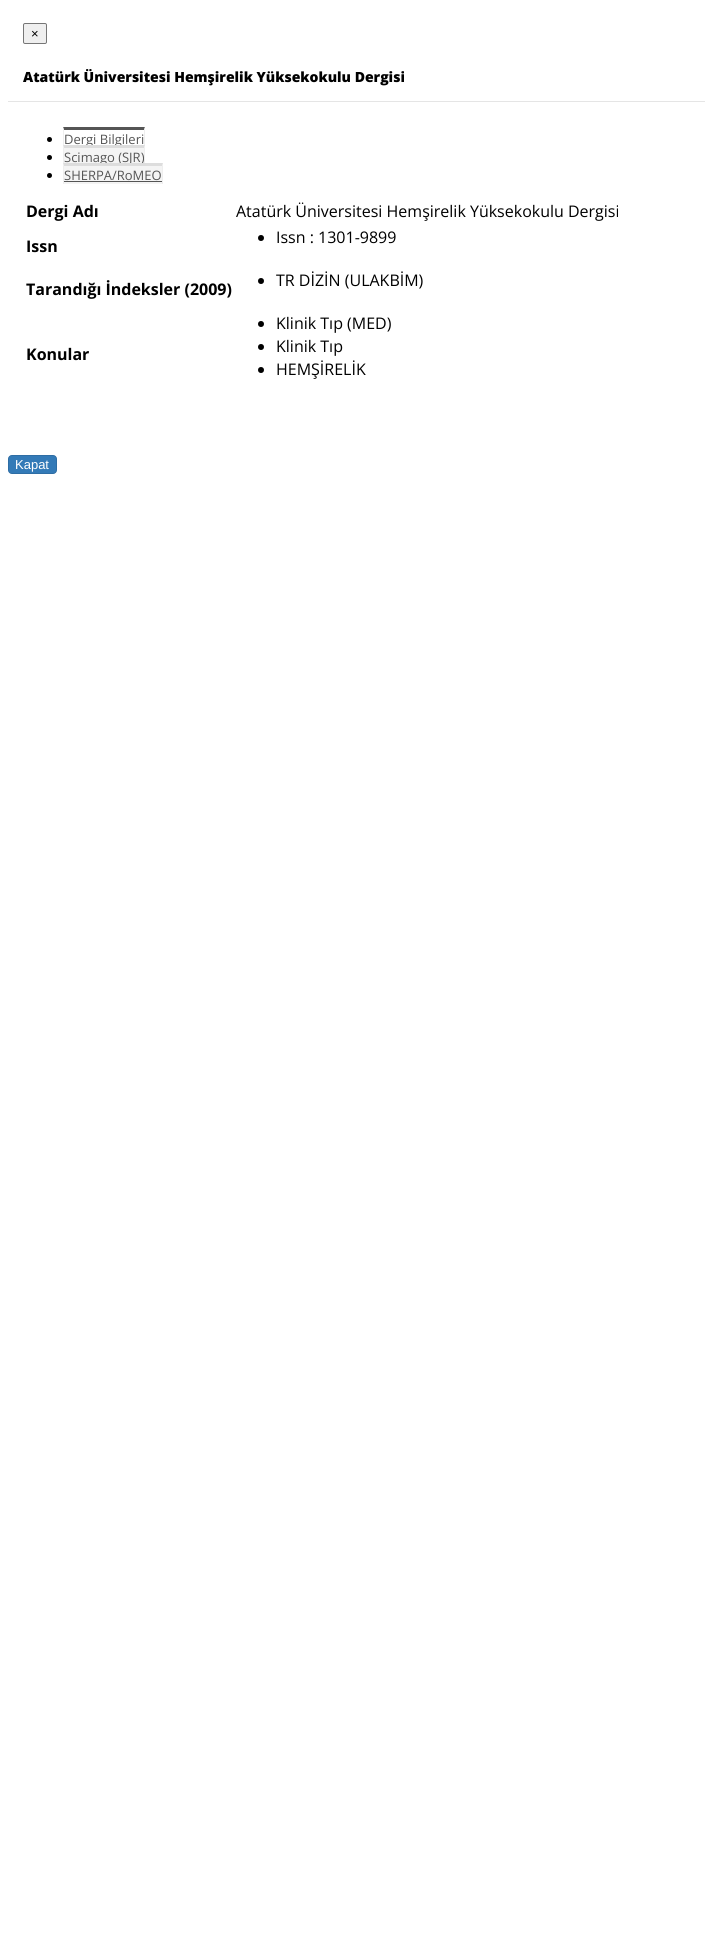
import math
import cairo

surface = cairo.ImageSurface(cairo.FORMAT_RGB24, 713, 1938)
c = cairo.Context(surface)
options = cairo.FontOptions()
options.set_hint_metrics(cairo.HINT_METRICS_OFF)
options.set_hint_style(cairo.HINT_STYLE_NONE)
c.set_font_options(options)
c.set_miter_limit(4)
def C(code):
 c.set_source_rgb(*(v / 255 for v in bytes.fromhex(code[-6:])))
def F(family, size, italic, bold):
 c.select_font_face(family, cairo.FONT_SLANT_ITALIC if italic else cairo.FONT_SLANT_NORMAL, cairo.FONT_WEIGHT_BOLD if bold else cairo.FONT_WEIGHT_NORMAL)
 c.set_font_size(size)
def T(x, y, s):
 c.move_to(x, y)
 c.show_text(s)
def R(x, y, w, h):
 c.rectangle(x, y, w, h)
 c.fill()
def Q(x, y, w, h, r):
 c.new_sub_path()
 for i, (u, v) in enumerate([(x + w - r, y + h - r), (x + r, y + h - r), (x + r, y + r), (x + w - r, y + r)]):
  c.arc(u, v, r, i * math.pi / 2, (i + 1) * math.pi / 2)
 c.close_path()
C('ffffff')
c.paint()
C('e5e5e5')
R(8,101,697,1)
C('efefef')
Q(23.5,23.5,23,20,1.5)
c.fill_preserve()
C('767676')
c.set_line_width(1)
c.stroke()
F('Liberation Sans',13,0,0)
C('000000')
T(31,38,'×')
F('Open Sans ExtraBold',14,0,0)
T(23,82,'Atatürk Üniversitesi Hemşirelik Yüksekokulu Dergisi')
c.new_path()
c.arc(49.5,139.5,2.5,0,2 * math.pi)
c.fill()
F('Open Sans',13,0,0)
C('555555')
T(64,144,'Dergi Bilgileri')
c.new_path()
c.move_to(63,127)
c.line_to(145,127)
c.line_to(144,130)
c.line_to(64,130)
c.close_path()
c.fill()
C('eeeeee')
c.new_path()
c.move_to(145,127)
c.line_to(145,148)
c.line_to(144,148)
c.line_to(144,130)
c.close_path()
c.fill()
c.new_path()
c.move_to(63,148)
c.line_to(63,127)
c.line_to(64,130)
c.line_to(64,148)
c.close_path()
c.fill()
C('000000')
c.arc(49.5,157.5,2.5,0,2 * math.pi)
c.fill()
C('f4f4f4')
R(63,145,82,18)
C('555555')
T(64,162,'Scimago (SJR)')
C('dddddd')
c.new_path()
c.move_to(63,145)
c.line_to(145,145)
c.line_to(144,148)
c.line_to(64,148)
c.close_path()
c.fill()
C('eeeeee')
c.new_path()
c.move_to(145,145)
c.line_to(145,166)
c.line_to(144,166)
c.line_to(144,148)
c.close_path()
c.fill()
c.new_path()
c.move_to(63,166)
c.line_to(63,145)
c.line_to(64,148)
c.line_to(64,166)
c.close_path()
c.fill()
C('000000')
c.arc(49.5,175.5,2.5,0,2 * math.pi)
c.fill()
C('f4f4f4')
R(63,163,100,21)
C('555555')
T(64,180,'SHERPA/RoMEO')
C('dddddd')
c.new_path()
c.move_to(63,163)
c.line_to(163,163)
c.line_to(162,166)
c.line_to(64,166)
c.close_path()
c.fill()
C('eeeeee')
c.new_path()
c.move_to(163,163)
c.line_to(163,184)
c.line_to(162,184)
c.line_to(162,166)
c.close_path()
c.fill()
c.new_path()
c.move_to(63,184)
c.line_to(63,163)
c.line_to(64,166)
c.line_to(64,184)
c.close_path()
c.fill()
C('555555')
R(64,181,98,1)
F('Open Sans',16,0,1)
C('000000')
T(26,217,'Dergi Adı')
F('Open Sans',16,0,0)
T(236,217,'Atatürk Üniversitesi Hemşirelik Yüksekokulu Dergisi')
c.new_path()
c.arc(261,238,3,0,2 * math.pi)
c.fill()
T(276,243,'Issn : 1301-9899')
F('Open Sans',16,0,1)
T(26,252,'Issn')
T(26,295,'Tarandığı İndeksler (2009)')
c.new_path()
c.arc(261,281,3,0,2 * math.pi)
c.fill()
F('Open Sans',16,0,0)
T(276,286,'TR DİZİN (ULAKBİM)')
F('Open Sans',16,0,1)
T(26,360,'Konular')
c.new_path()
c.arc(261,324,3,0,2 * math.pi)
c.fill()
F('Open Sans',16,0,0)
T(276,329,'Klinik Tıp (MED)')
c.new_path()
c.arc(261,347,3,0,2 * math.pi)
c.fill()
T(276,352,'Klinik Tıp')
c.new_path()
c.arc(261,370,3,0,2 * math.pi)
c.fill()
T(276,375,'HEMŞİRELİK')
C('337ab7')
Q(8.5,455.5,48,18,3.5)
c.fill_preserve()
C('2e6da4')
c.stroke()
F('Liberation Sans',13,0,0)
C('ffffff')
T(15,469,'Kapat')
surface.write_to_png('o.png')
